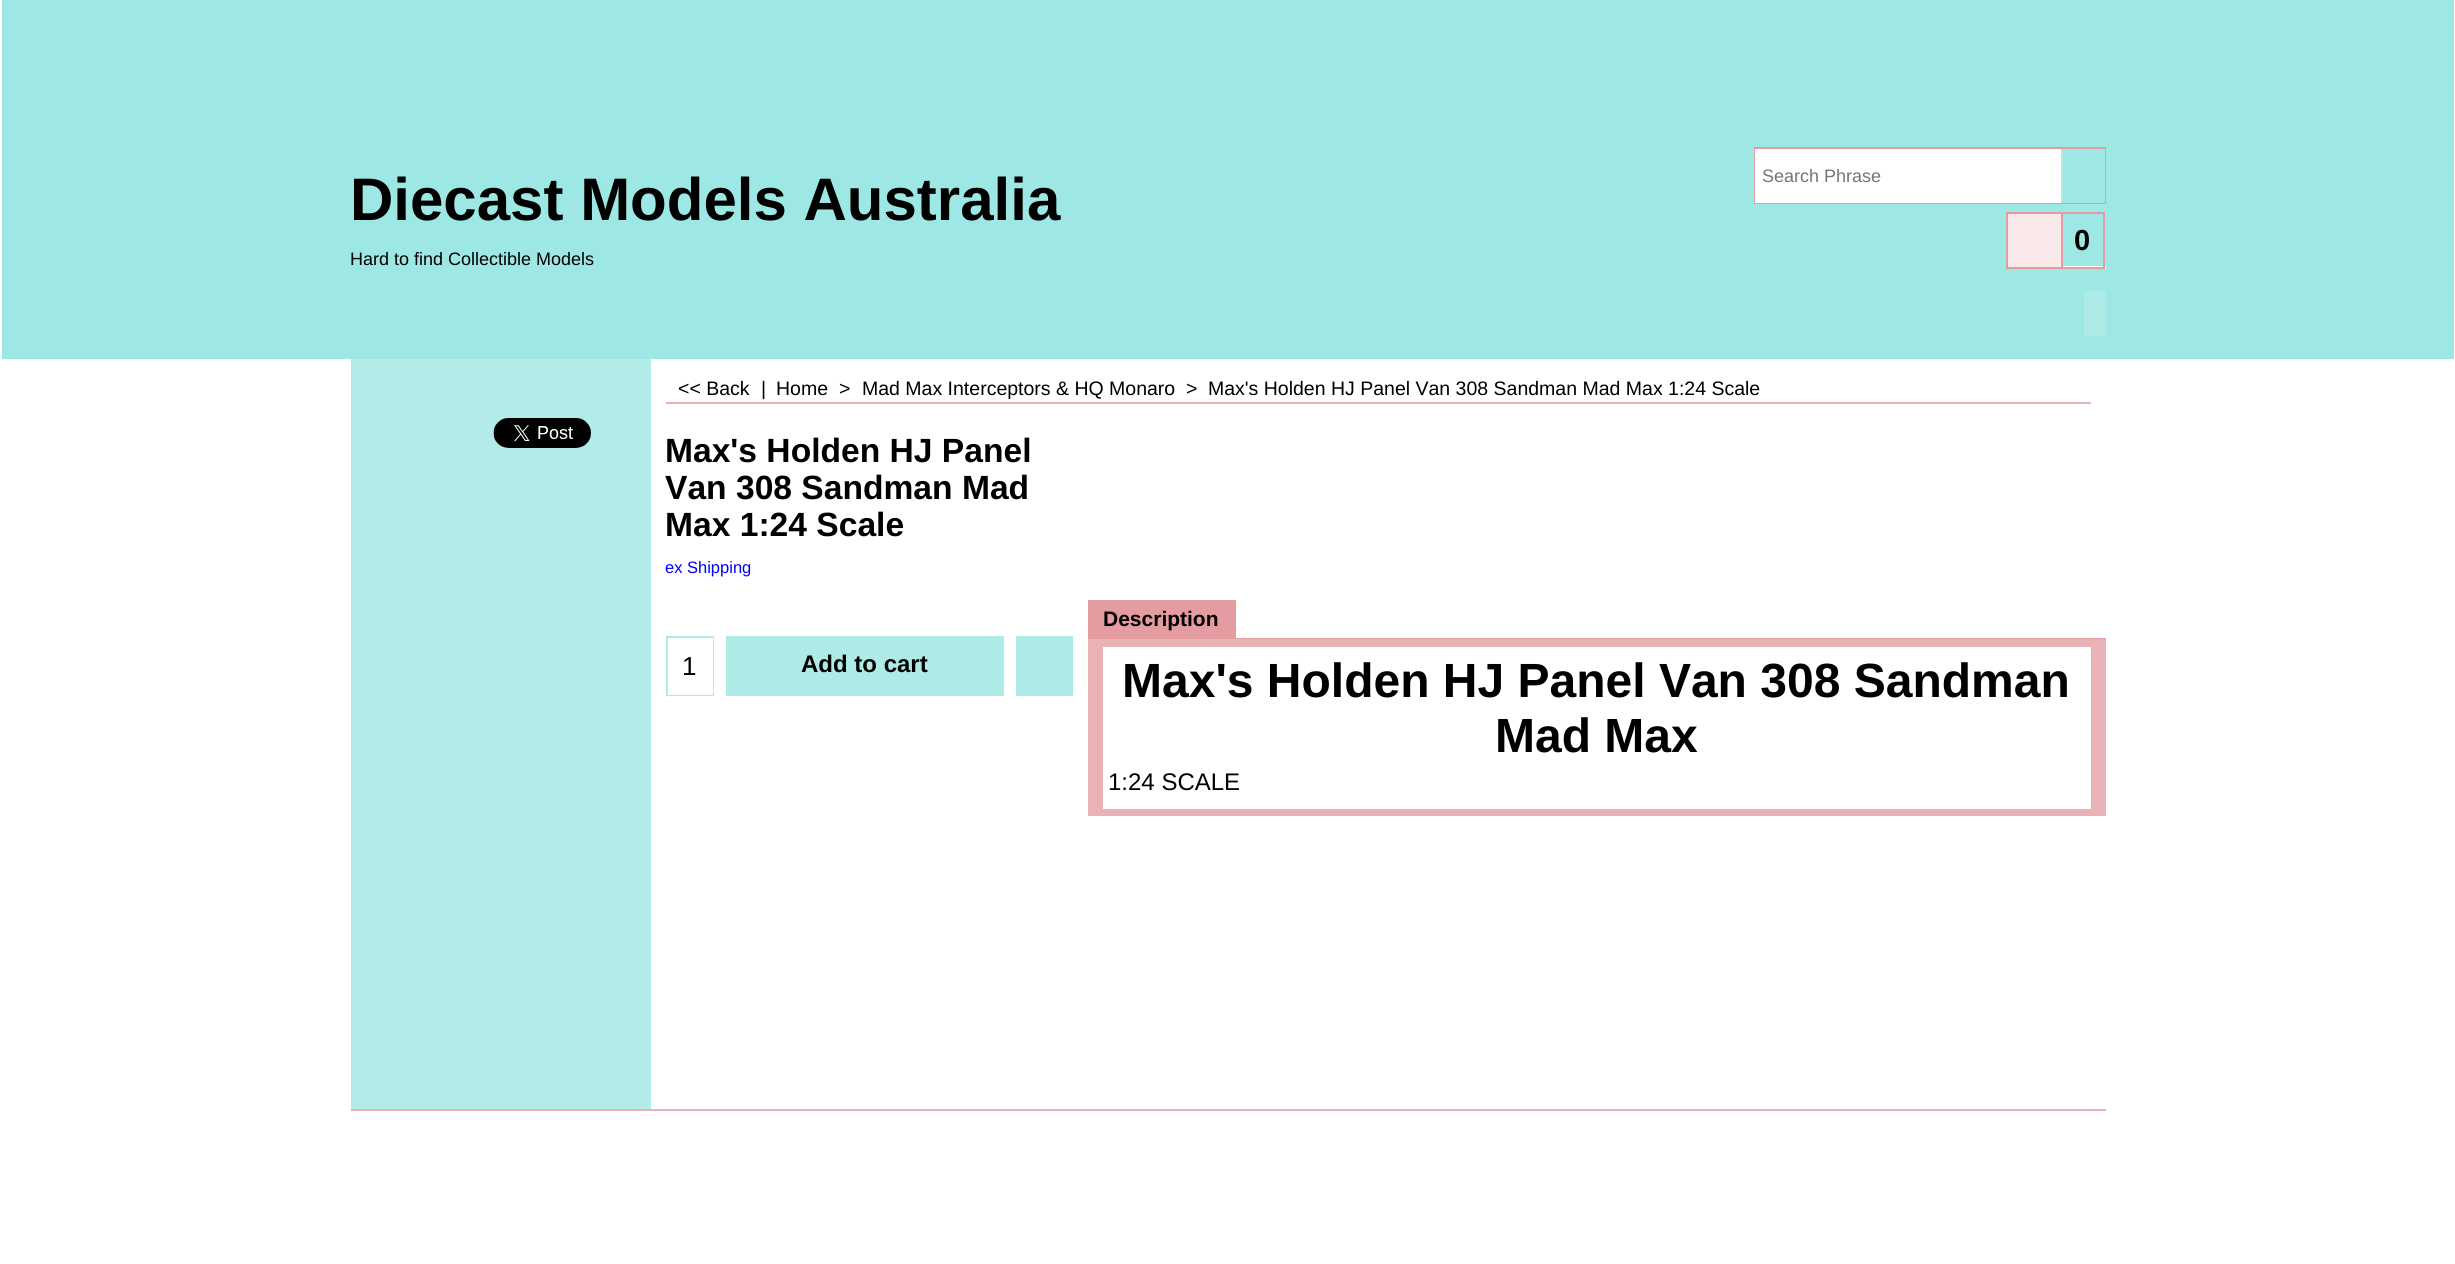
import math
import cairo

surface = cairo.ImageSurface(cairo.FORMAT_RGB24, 2455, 1264)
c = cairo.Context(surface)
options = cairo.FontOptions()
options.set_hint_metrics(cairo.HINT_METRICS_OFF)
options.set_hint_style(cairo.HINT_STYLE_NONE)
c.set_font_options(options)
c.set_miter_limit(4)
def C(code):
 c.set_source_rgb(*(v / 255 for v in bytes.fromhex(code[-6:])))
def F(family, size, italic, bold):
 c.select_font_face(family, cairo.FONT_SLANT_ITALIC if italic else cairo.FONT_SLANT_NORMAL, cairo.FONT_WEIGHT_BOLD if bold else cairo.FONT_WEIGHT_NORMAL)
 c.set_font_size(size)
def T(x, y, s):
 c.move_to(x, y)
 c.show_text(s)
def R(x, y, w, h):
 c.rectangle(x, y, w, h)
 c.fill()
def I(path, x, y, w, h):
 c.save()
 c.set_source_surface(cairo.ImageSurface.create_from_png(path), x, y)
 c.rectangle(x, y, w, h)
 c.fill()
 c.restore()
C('ffffff')
c.paint()
C('9de8e4')
R(2,0,2452,359)
F('Liberation Sans',60,0,1)
C('000000')
T(350,220,'Diecast Models Australia')
F('Liberation Sans',18,0,0)
T(350,265,'Hard to find Collectible Models')
c.rectangle(1755,148,350,55)
C('e59ca0')
c.stroke()
C('ffffff')
R(1755,149,306,54)
C('757575')
T(1762,182,'Search Phrase')
C('9de8e4')
R(2063,149,42,54)
C('aeeae6')
R(2061,149,2,54)
C('ffffff')
R(2063,266,43,3)
C('f9e9ea')
c.rectangle(2007,213,55,55)
c.fill_preserve()
C('e59ca0')
c.stroke()
c.rectangle(2062,213,42,55)
c.stroke()
F('Liberation Sans',29,0,1)
C('000000')
T(2074,250,'0')
C('aeeae6')
R(2084,291,22,45)
C('b3ebe8')
R(351,359,300,750)
I('1.png',493,418,98,30)
C('e9b3b6')
R(666,402,1425,2)
F('Liberation Sans',19.5,0,0)
C('000000')
T(678,395,'<< Back')
T(761,395,'|')
T(776,395,'Home')
T(839,395,'>')
T(862,395,'Mad Max Interceptors & HQ Monaro')
T(1186,395,'>')
T(1208,395,'Max\'s Holden HJ Panel Van 308 Sandman Mad Max 1:24 Scale')
F('Liberation Sans',33.6,0,1)
T(665,462,'Max\'s Holden HJ Panel')
T(665,499,'Van 308 Sandman Mad')
T(665,536,'Max 1:24 Scale')
F('Liberation Sans',16.5,0,0)
C('0000ff')
T(665,573,'ex Shipping')
C('aeeae6')
R(666,636,48,60)
C('ffffff')
R(668,638,45,57)
F('Liberation Sans',26,0,0)
C('000000')
T(682,675,'1')
C('aeeae6')
R(726,636,278,60)
F('Liberation Sans',24,0,1)
C('000000')
T(801,672,'Add to cart')
C('aeeae6')
R(1016,636,57,60)
C('e59ca0')
R(1088,600,148,39)
F('Liberation Sans',21,0,1)
C('000000')
T(1103,626,'Description')
C('e59ca0')
R(1236,638,870,1)
C('e9b3b6')
R(1088,639,1018,177)
C('ffffff')
R(1103,647,988,162)
F('Liberation Sans',48,0,1)
C('000000')
T(1122,697,'Max\'s Holden HJ Panel Van 308 Sandman')
T(1495,752,'Mad Max')
F('Liberation Sans',24,0,0)
T(1108,790,'1:24 SCALE')
C('e9b3b6')
R(351,1109,1755,2)
surface.write_to_png('o.png')
